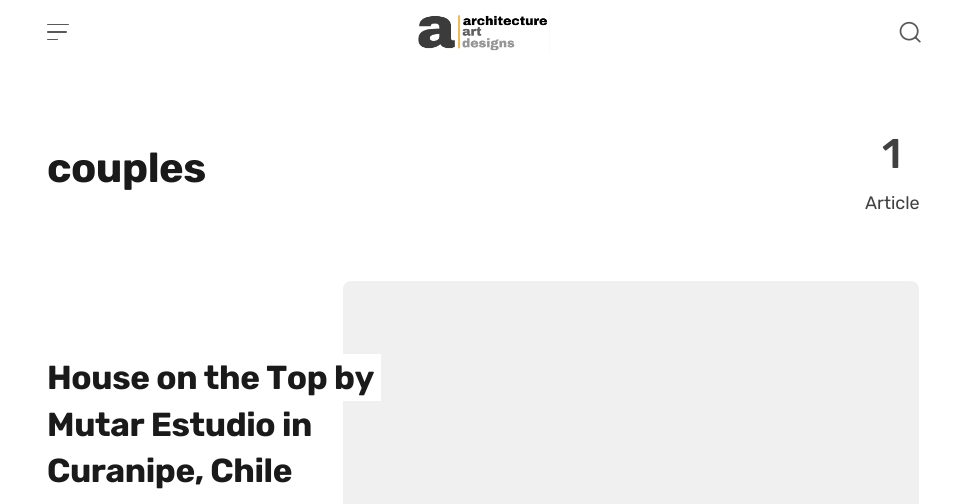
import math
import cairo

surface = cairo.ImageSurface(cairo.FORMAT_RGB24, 966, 504)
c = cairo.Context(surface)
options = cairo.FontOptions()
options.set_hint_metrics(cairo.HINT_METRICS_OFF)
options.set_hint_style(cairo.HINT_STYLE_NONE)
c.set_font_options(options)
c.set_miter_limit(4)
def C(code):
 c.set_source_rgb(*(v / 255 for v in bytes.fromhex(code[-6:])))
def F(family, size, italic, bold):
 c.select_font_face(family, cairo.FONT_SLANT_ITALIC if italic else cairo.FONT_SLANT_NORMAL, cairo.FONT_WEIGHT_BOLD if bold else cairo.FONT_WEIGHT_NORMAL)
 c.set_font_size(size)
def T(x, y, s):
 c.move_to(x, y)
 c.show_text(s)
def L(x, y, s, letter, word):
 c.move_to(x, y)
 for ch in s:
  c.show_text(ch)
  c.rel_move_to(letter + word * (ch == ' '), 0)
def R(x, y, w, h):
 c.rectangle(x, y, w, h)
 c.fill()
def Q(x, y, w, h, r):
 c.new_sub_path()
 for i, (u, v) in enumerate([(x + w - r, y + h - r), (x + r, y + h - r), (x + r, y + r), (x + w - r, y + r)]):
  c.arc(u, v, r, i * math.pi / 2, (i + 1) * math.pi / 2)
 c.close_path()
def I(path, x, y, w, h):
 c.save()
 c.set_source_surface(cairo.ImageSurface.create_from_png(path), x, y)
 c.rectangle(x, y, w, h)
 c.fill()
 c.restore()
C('ffffff')
c.paint()
C('595959')
Q(47,24,22,1,.5)
c.fill()
Q(47,31,20,2,1)
c.fill()
Q(47,39,11,1,.5)
c.fill()
I('1.png',418,12,132,40)
I('2.png',899,21,22,22)
F('Rubik',41.5,0,1)
C('1a1a1a')
L(47,182,'couples',-.5,0)
F('Rubik Medium',41.5,0,0)
C('404040')
T(882,168,'1')
F('Rubik',18,0,0)
T(865,209,'Article')
C('f0f0f0')
Q(343,281,576,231,8)
c.fill()
C('ffffff')
c.new_path()
c.move_to(55,354)
c.line_to(55,358)
c.line_to(373,358)
c.line_to(373,393)
c.line_to(381,393)
c.line_to(381,354)
c.close_path()
c.fill()
c.new_path()
c.move_to(55,397)
c.line_to(55,401)
c.line_to(381,401)
c.line_to(381,362)
c.line_to(373,362)
c.line_to(373,397)
c.close_path()
c.fill()
R(343,358,30,39)
F('Rubik',33.25,0,1)
C('1a1a1a')
L(47,389,'House on the Top by',-.4,0)
L(47,436,'Mutar Estudio in',-.4,0)
L(47,482,'Curanipe, Chile',-.4,0)
surface.write_to_png('o.png')
